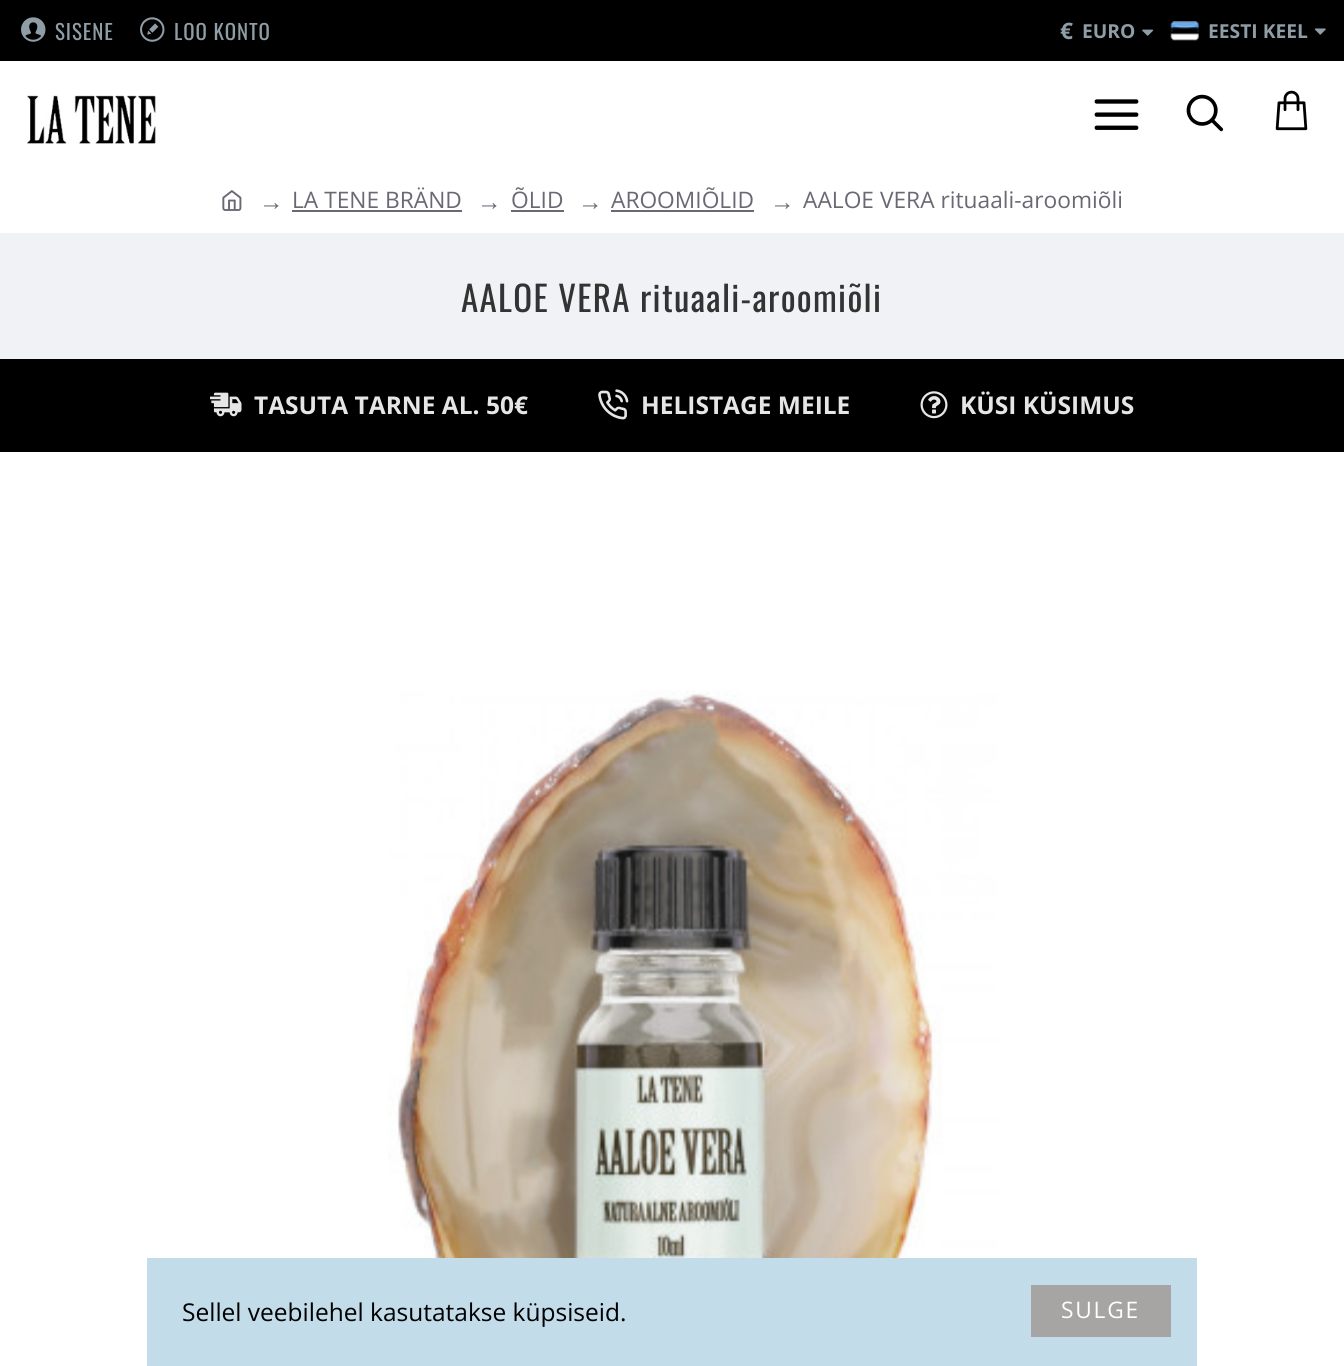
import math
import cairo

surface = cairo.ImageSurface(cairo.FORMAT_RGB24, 1344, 1366)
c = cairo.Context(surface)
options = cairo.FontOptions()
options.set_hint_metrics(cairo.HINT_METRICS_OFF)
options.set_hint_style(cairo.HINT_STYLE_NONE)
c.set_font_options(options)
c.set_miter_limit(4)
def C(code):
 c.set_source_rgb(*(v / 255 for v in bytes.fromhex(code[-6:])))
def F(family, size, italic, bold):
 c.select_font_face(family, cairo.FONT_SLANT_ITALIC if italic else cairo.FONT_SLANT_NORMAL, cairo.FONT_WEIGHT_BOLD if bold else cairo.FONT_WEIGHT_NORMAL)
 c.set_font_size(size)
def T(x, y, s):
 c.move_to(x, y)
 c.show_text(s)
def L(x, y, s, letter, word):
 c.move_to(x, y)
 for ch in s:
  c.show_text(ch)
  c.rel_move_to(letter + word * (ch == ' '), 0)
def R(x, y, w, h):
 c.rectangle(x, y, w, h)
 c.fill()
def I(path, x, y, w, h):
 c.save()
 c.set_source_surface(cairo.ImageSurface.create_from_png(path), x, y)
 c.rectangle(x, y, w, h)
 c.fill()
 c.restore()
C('ffffff')
c.paint()
C('000000')
R(0,0,1344,61)
I('1.png',21,17,25,25)
F('Oswald',21,0,0)
C('8f9da6')
L(55,40,'SISENE',.9,0)
I('2.png',140,17,25,25)
L(174,40,'LOO KONTO',.9,0)
F('Open Sans',22.75,0,1)
T(1060,39,'€')
F('Open Sans',19.25,0,1)
T(1082,38,'EURO')
I('3.png',1142,29,12,7)
I('4.png',1170,21,29,20)
T(1208,38,'EESTI KEEL')
I('5.png',1314,28,12,7)
I('6.png',27,95,129,49)
I('7.png',1094,99,45,31)
I('8.png',1186,94,38,38)
I('9.png',1275,90,33,41)
I('10.png',222,190,20,21)
F('Liberation Serif',24.5,0,0)
C('696973')
T(259,210,'→')
F('Open Sans',22.75,0,0)
T(292,208,'LA TENE BRÄND')
R(292,210,170,2)
F('Liberation Serif',24.5,0,0)
T(477,210,'→')
F('Open Sans',22.75,0,0)
T(511,208,'ÕLID')
R(511,210,53,2)
F('Liberation Serif',24.5,0,0)
T(578,210,'→')
F('Open Sans',22.75,0,0)
T(611,208,'AROOMIÕLID')
R(611,210,143,2)
F('Liberation Serif',24.5,0,0)
T(770,210,'→')
F('Open Sans',22.75,0,0)
T(803,208,'AALOE VERA rituaali-aroomiõli')
C('f0f2f5')
R(0,233,1344,126)
F('Oswald',35,0,0)
C('333333')
L(461,312,'AALOE VERA rituaali-aroomiõli',1.3,0)
C('000000')
R(0,359,1344,93)
I('11.png',210,392,32,25)
F('Open Sans',24.5,0,1)
C('e6e6e6')
T(254,414,'TASUTA TARNE AL. 50€')
I('12.png',598,389,31,31)
T(641,414,'HELISTAGE MEILE')
I('13.png',920,391,28,28)
T(960,414,'KÜSI KÜSIMUS')
I('14.png',388,690,610,568)
C('c2dcea')
R(147,1258,1050,108)
F('Open Sans',24.5,0,0)
C('000000')
T(182,1321,'Sellel veebilehel kasutatakse küpsiseid.')
C('a7a4a4')
R(1031,1285,140,52)
F('Open Sans',22.75,0,0)
C('ffffff')
L(1061,1318,'SULGE',1.75,0)
surface.write_to_png('o.png')
